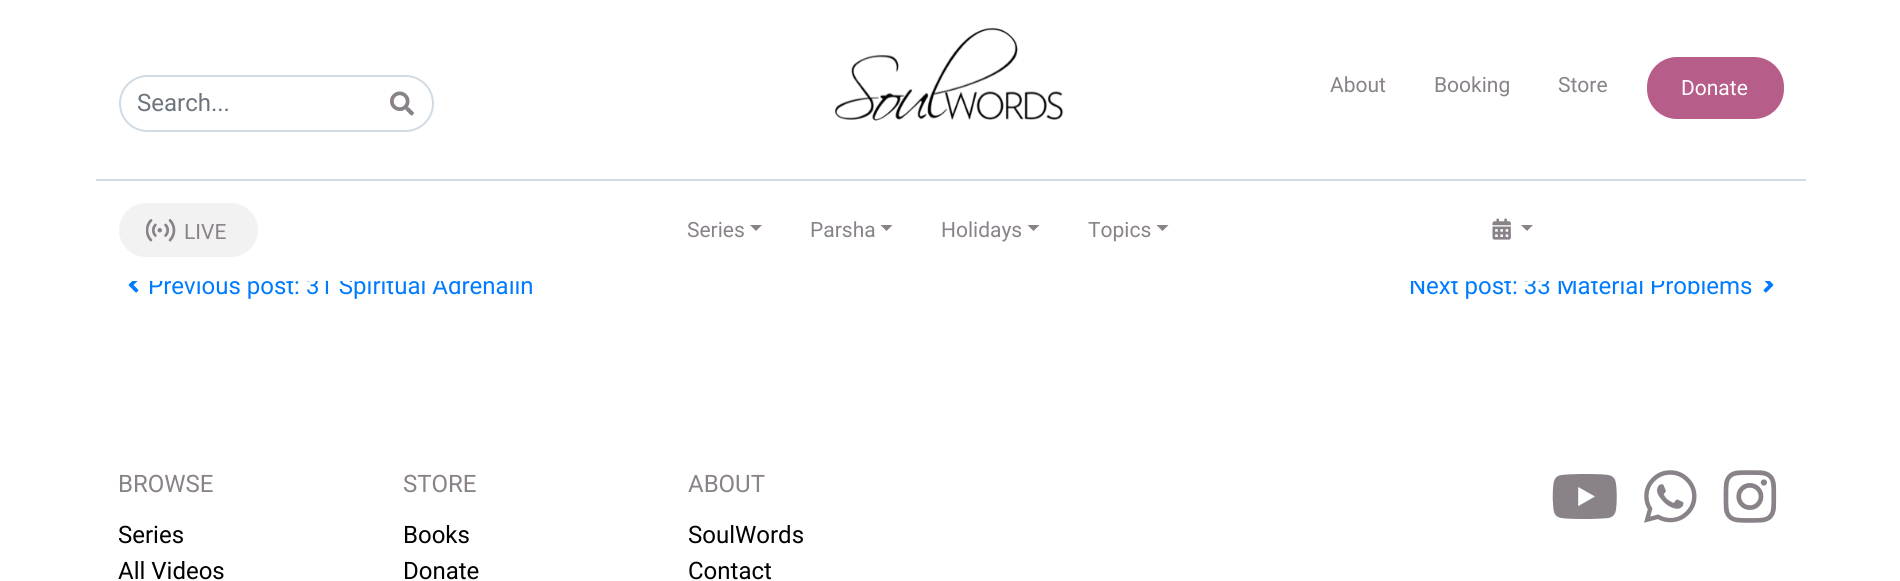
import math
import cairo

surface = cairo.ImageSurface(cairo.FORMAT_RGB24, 1900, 581)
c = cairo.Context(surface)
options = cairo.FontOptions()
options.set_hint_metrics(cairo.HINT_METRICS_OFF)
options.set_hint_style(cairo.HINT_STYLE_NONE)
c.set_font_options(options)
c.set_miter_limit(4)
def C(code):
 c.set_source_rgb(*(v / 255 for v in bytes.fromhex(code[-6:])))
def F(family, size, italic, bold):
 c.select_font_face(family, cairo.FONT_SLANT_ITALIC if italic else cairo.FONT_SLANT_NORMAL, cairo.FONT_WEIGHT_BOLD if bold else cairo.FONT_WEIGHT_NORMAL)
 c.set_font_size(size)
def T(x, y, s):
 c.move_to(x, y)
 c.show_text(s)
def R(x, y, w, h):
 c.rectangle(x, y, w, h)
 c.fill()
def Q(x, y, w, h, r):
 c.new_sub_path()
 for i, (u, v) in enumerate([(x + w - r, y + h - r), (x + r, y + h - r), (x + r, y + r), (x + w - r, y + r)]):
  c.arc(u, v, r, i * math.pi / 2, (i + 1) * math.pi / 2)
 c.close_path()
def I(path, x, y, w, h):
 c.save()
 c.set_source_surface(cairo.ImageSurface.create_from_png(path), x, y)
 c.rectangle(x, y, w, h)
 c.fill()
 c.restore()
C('ffffff')
c.paint()
F('Roboto',24,0,0)
C('007bff')
T(148,294,'Previous post: 31 Spiritual Adrenalin')
T(1409,294,'Next post: 33 Material Problems')
C('ffffff')
R(149,276,1556,5)
I('1.png',834,27,230,94)
F('Roboto',21,0,0)
C('898289')
T(1330,92,'About')
T(1434,92,'Booking')
T(1558,92,'Store')
C('b75d89')
Q(1647,57,137,62,30)
c.fill()
C('ffffff')
T(1681,95,'Donate')
Q(120,76,313,55,27.5)
C('d1dbe3')
c.stroke()
F('Roboto',24,0,0)
C('6c757d')
T(137,111,'Search...')
I('2.png',390,91,24,25)
C('d1dbe3')
R(96,179,1710,2)
C('f2f2f2')
Q(119,203,139,54,27)
c.fill()
I('3.png',146,219,30,23)
F('Roboto',21,0,0)
C('898289')
T(184,239,'LIVE')
T(687,237,'Series')
c.new_path()
c.move_to(750,225)
c.line_to(762,225)
c.line_to(756,231)
c.close_path()
c.fill()
T(810,237,'Parsha')
c.new_path()
c.move_to(880.5,225)
c.line_to(892.5,225)
c.line_to(886.5,231)
c.close_path()
c.fill()
T(941,237,'Holidays')
c.new_path()
c.move_to(1027.5,225)
c.line_to(1039.5,225)
c.line_to(1033.5,231)
c.close_path()
c.fill()
T(1088,237,'Topics')
c.new_path()
c.move_to(1156.5,225)
c.line_to(1168.5,225)
c.line_to(1162.5,231)
c.close_path()
c.fill()
I('4.png',1492,218,19,22)
c.new_path()
c.move_to(1521,225)
c.line_to(1533,225)
c.line_to(1527,231)
c.close_path()
c.fill()
I('5.png',128,281,11,12)
I('6.png',1763,281,11,12)
F('Roboto',24,0,0)
T(118,492,'BROWSE')
C('000000')
T(118,543,'Series')
T(118,579,'All Videos')
C('898289')
T(403,492,'STORE')
C('000000')
T(403,543,'Books')
T(403,579,'Donate')
C('898289')
T(688,492,'ABOUT')
C('000000')
T(688,543,'SoulWords')
T(688,579,'Contact')
I('7.png',1552,474,65,45)
I('8.png',1644,470,53,53)
I('9.png',1723,470,54,53)
surface.write_to_png('o.png')
